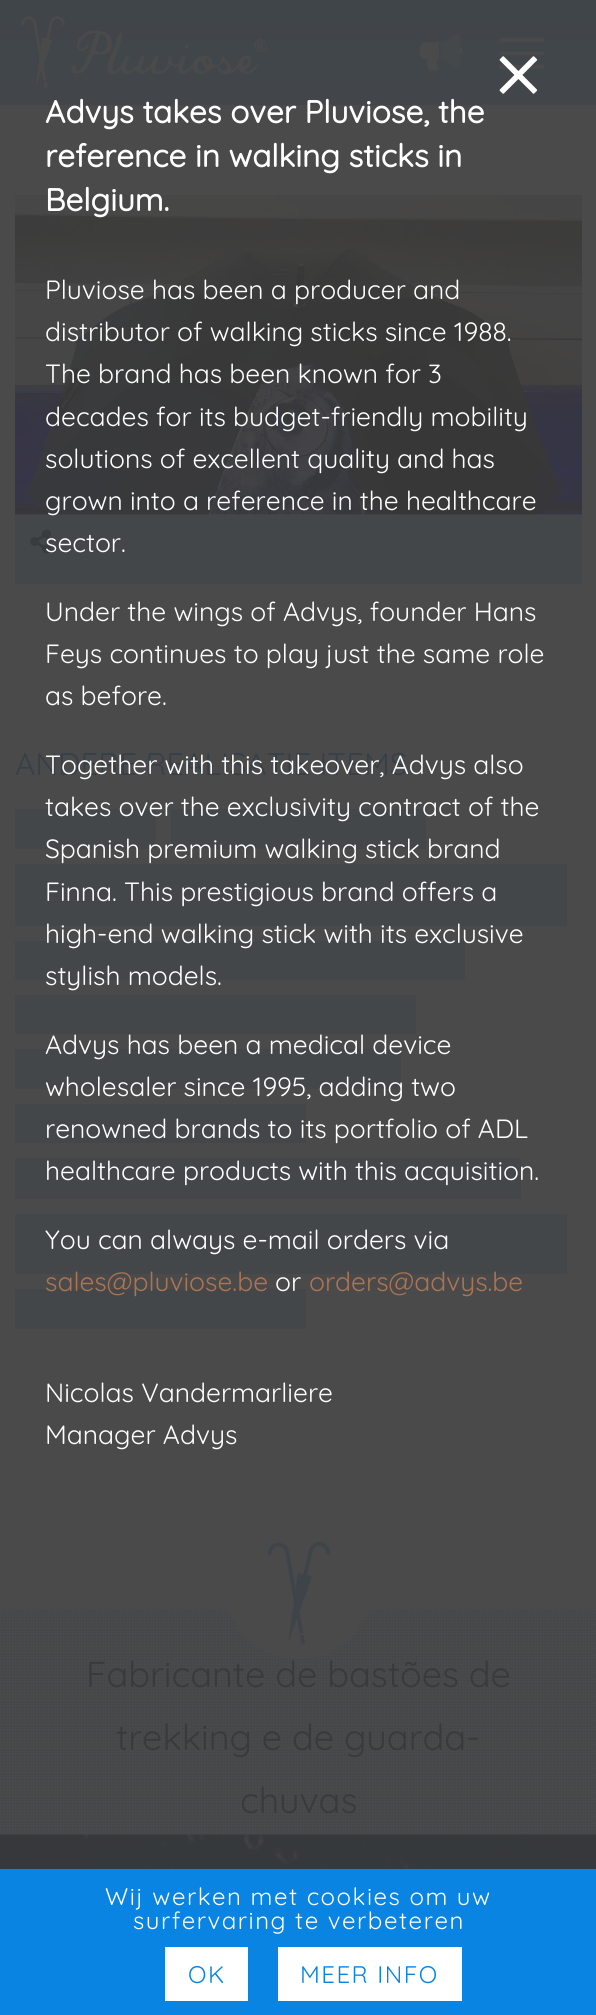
import math
import cairo

surface = cairo.ImageSurface(cairo.FORMAT_RGB24, 596, 2015)
c = cairo.Context(surface)
options = cairo.FontOptions()
options.set_hint_metrics(cairo.HINT_METRICS_OFF)
options.set_hint_style(cairo.HINT_STYLE_NONE)
c.set_font_options(options)
c.set_miter_limit(4)
def C(code):
 c.set_source_rgb(*(v / 255 for v in bytes.fromhex(code[-6:])))
def F(family, size, italic, bold):
 c.select_font_face(family, cairo.FONT_SLANT_ITALIC if italic else cairo.FONT_SLANT_NORMAL, cairo.FONT_WEIGHT_BOLD if bold else cairo.FONT_WEIGHT_NORMAL)
 c.set_font_size(size)
def T(x, y, s):
 c.move_to(x, y)
 c.show_text(s)
def L(x, y, s, letter, word):
 c.move_to(x, y)
 for ch in s:
  c.show_text(ch)
  c.rel_move_to(letter + word * (ch == ' '), 0)
def R(x, y, w, h):
 c.rectangle(x, y, w, h)
 c.fill()
def I(path, x, y, w, h):
 c.save()
 c.set_source_surface(cairo.ImageSurface.create_from_png(path), x, y)
 c.rectangle(x, y, w, h)
 c.fill()
 c.restore()
C('4a4a4a')
c.paint()
gradient = cairo.LinearGradient(299,0,299,105)
gradient.add_color_stop_rgba(0,0.251,0.271,0.29,1)
gradient.add_color_stop_rgba(.01,0.251,0.271,0.29,1)
gradient.add_color_stop_rgba(1,0.259,0.275,0.29,1)
c.set_source(gradient)
R(0,0,596,105)
I('1.png',21,16,246,72)
I('3.png',420,42,43,29)
I('2.png',441,33,19,36)
I('4.png',499,38,46,31)
I('5.png',499,56,39,38)
F('Quicksand',31.5,0,1)
C('ffffff')
T(45,123,'Advys takes over Pluviose, the')
T(45,167,'reference in walking sticks in')
I('6.png',15,195,567,320)
T(45,211,'Belgium.')
F('Quicksand Light',26.4,0,0)
T(45,299,'Pluviose has been a producer and')
T(45,341,'distributor of walking sticks since 1988.')
T(45,383,'The brand has been known for 3')
T(45,426,'decades for its budget-friendly mobility')
T(45,468,'solutions of excellent quality and has')
C('444749')
R(15,515,567,69)
C('ffffff')
T(45,510,'grown into a reference in the healthcare')
I('7.png',30,529,21,25)
T(45,552,'sector.')
T(45,621,'Under the wings of Advys, founder Hans')
T(45,663,'Feys continues to play just the same role')
T(45,705,'as before.')
F('Quicksand Light',31.25,0,0)
C('364048')
T(15,775,'ANDERE REALISATIE ITEMS')
F('Quicksand Light',26.4,0,0)
C('ffffff')
T(45,774,'Together with this takeover, Advys also')
C('444749')
R(15,809,141,40)
R(171,809,255,40)
C('ffffff')
T(45,816,'takes over the exclusivity contract of the')
T(45,858,'Spanish premium walking stick brand')
C('444749')
R(15,864,552,62)
C('ffffff')
T(45,901,'Finna. This prestigious brand offers a')
C('444749')
R(15,941,450,39)
C('ffffff')
T(45,943,'high-end walking stick with its exclusive')
T(45,985,'stylish models.')
C('444749')
R(15,1049,386,40)
C('ffffff')
T(45,1054,'Advys has been a medical device')
T(45,1096,'wholesaler since 1995, adding two')
C('444749')
R(15,1104,291,39)
C('ffffff')
T(45,1138,'renowned brands to its portfolio of ADL')
C('444749')
R(15,1158,506,41)
C('ffffff')
T(45,1180,'healthcare products with this acquisition.')
C('444749')
R(15,1214,552,60)
C('ffffff')
T(45,1249,'You can always e-mail orders via')
C('444749')
R(15,1289,291,40)
C('aa7555')
T(45,1291,'sales@pluviose.be')
C('ffffff')
T(275,1291,'or')
C('aa7555')
T(309,1291,'orders@advys.be')
C('ffffff')
T(45,1402,'Nicolas Vandermarliere')
T(45,1444,'Manager Advys')
C('444749')
R(15,995,401,39)
I('9.png',0,1609,596,226)
I('8.png',227,1541,142,118)
F('Quicksand Light',36,0,0)
C('3a3a3a')
T(86,1687,'Fabricante de bastões de')
T(116,1750,'trekking e de guarda-')
T(240,1813,'chuvas')
I('10.png',0,1834,596,35)
C('0984e3')
R(0,1869,596,146)
F('Quicksand Light',24,0,0)
C('ffffff')
L(105,1905,'Wij werken met cookies om uw',1.5,0)
L(133,1929,'surfervaring te verbeteren',1.5,0)
R(165,1947,83,54)
C('0984e3')
L(188,1983,'OK',1.5,0)
C('ffffff')
R(278,1947,184,54)
C('0984e3')
L(300,1983,'MEER INFO',1.5,0)
surface.write_to_png('o.png')
